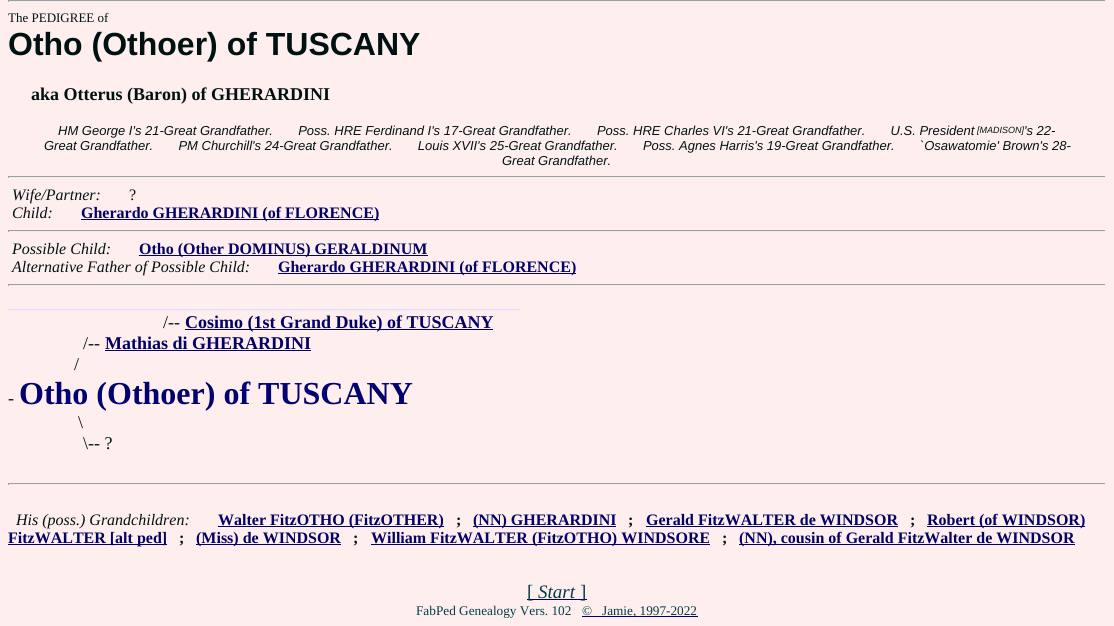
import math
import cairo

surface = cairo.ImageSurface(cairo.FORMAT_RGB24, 1114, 626)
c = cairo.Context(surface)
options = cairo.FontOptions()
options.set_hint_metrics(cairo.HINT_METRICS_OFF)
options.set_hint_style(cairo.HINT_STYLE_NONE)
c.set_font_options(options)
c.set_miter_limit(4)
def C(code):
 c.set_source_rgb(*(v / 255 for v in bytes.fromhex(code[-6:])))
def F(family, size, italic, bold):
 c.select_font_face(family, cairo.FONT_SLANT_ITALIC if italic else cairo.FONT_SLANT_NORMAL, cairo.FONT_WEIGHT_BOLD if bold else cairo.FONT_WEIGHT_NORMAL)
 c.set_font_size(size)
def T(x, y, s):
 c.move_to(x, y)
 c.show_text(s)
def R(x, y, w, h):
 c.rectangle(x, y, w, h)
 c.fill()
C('ffeeee')
c.paint()
C('9f9f9f')
R(8,0,1098,1)
C('eeeeee')
R(1105,0,1,2)
R(8,1,1098,1)
C('9f9f9f')
R(8,0,1,2)
F('Liberation Serif',13,0,0)
C('001111')
T(8,22,'The PEDIGREE of')
F('Liberation Sans',32,0,1)
T(8,55,'Otho (Othoer) of TUSCANY')
F('Liberation Serif',18,0,1)
T(31,100,'aka Otterus (Baron) of GHERARDINI')
F('Liberation Sans',13,1,0)
T(58,135,'HM George I\'s 21-Great Grandfather.       Poss. HRE Ferdinand I\'s 17-Great Grandfather.       Poss. HRE Charles VI\'s 21-Great Grandfather.       U.S. President')
F('Liberation Sans',9,1,0)
T(977,133,'[MADISON]')
F('Liberation Sans',13,1,0)
T(1024,135,'\'s 22-')
T(44,150,'Great Grandfather.       PM Churchill\'s 24-Great Grandfather.       Louis XVII\'s 25-Great Grandfather.       Poss. Agnes Harris\'s 19-Great Grandfather.       `Osawatomie\' Brown\'s 28-')
T(502,165,'Great Grandfather.')
C('9f9f9f')
R(8,176,1098,1)
C('eeeeee')
R(1105,176,1,2)
R(8,177,1098,1)
C('9f9f9f')
R(8,176,1,2)
F('Liberation Serif',16,1,0)
C('001111')
T(12,200,'Wife/Partner:')
F('Liberation Serif',16,0,0)
T(129,200,'?')
F('Liberation Serif',16,1,0)
T(12,218,'Child:')
C('000066')
R(81,219,298,1)
F('Liberation Serif',16,0,1)
T(81,218,'Gherardo GHERARDINI (of FLORENCE)')
C('9f9f9f')
R(8,230,1098,1)
C('eeeeee')
R(1105,230,1,2)
R(8,231,1098,1)
C('9f9f9f')
R(8,230,1,2)
F('Liberation Serif',16,1,0)
C('001111')
T(12,254,'Possible Child:')
C('000066')
R(139,255,289,1)
F('Liberation Serif',16,0,1)
T(139,254,'Otho (Other DOMINUS) GERALDINUM')
F('Liberation Serif',16,1,0)
C('001111')
T(12,272,'Alternative Father of Possible Child:')
C('000066')
R(278,273,298,1)
F('Liberation Serif',16,0,1)
T(278,272,'Gherardo GHERARDINI (of FLORENCE)')
C('9f9f9f')
R(8,284,1098,1)
C('eeeeee')
R(1105,284,1,2)
R(8,285,1098,1)
C('9f9f9f')
R(8,284,1,2)
C('ddddff')
T(8,308,'________________________________________________________________')
F('Liberation Serif',18,0,0)
C('001111')
T(163,328,'/--')
C('000066')
R(185,329,308,1)
F('Liberation Serif',18,0,1)
T(185,328,'Cosimo (1st Grand Duke) of TUSCANY')
F('Liberation Serif',18,0,0)
C('001111')
T(83,349,'/--')
F('Liberation Serif',18,0,1)
C('000066')
T(105,349,'Mathias di GHERARDINI')
R(105,350,206,1)
F('Liberation Serif',18,0,0)
C('001111')
T(74,370,'/')
T(8,404,'-')
F('Liberation Serif',32,0,1)
C('000070')
T(19,404,'Otho (Othoer) of TUSCANY')
F('Liberation Serif',18,0,0)
C('001111')
T(78,428,'\\')
T(83,449,'\\-- ?')
C('9f9f9f')
R(8,483,1098,1)
C('eeeeee')
R(1105,483,1,2)
R(8,484,1098,1)
C('9f9f9f')
R(8,483,1,2)
F('Liberation Serif',16,1,0)
C('001111')
T(16,525,'His (poss.) Grandchildren:')
C('000066')
R(218,526,226,1)
F('Liberation Serif',16,0,1)
T(218,525,'Walter FitzOTHO (FitzOTHER)')
C('001111')
T(456,525,';')
C('000066')
R(473,526,143,1)
T(473,525,'(NN) GHERARDINI')
C('001111')
T(628,525,';')
C('000066')
T(646,525,'Gerald FitzWALTER de WINDSOR')
R(646,526,252,1)
C('001111')
T(910,525,';')
C('000066')
R(927,526,158,1)
T(927,525,'Robert (of WINDSOR)')
R(8,544,159,1)
T(8,543,'FitzWALTER [alt ped]')
C('001111')
T(179,543,';')
C('000066')
R(196,544,145,1)
T(196,543,'(Miss) de WINDSOR')
C('001111')
T(353,543,';')
C('000066')
R(371,544,339,1)
T(371,543,'William FitzWALTER (FitzOTHO) WINDSORE')
C('001111')
T(722,543,';')
C('000066')
R(739,544,336,1)
T(739,543,'(NN), cousin of Gerald FitzWalter de WINDSOR')
R(527,599,60,1)
F('Liberation Serif',19,0,0)
C('003c48')
T(527,598,'[')
F('Liberation Serif',19,1,0)
T(538,598,'Start')
F('Liberation Serif',19,0,0)
T(580,598,']')
F('Liberation Serif',13.25,0,0)
T(416,615,'FabPed Genealogy Vers. 102')
C('000066')
R(582,616,116,1)
C('003c48')
T(582,615,'©   Jamie, 1997-2022')
surface.write_to_png('o.png')
